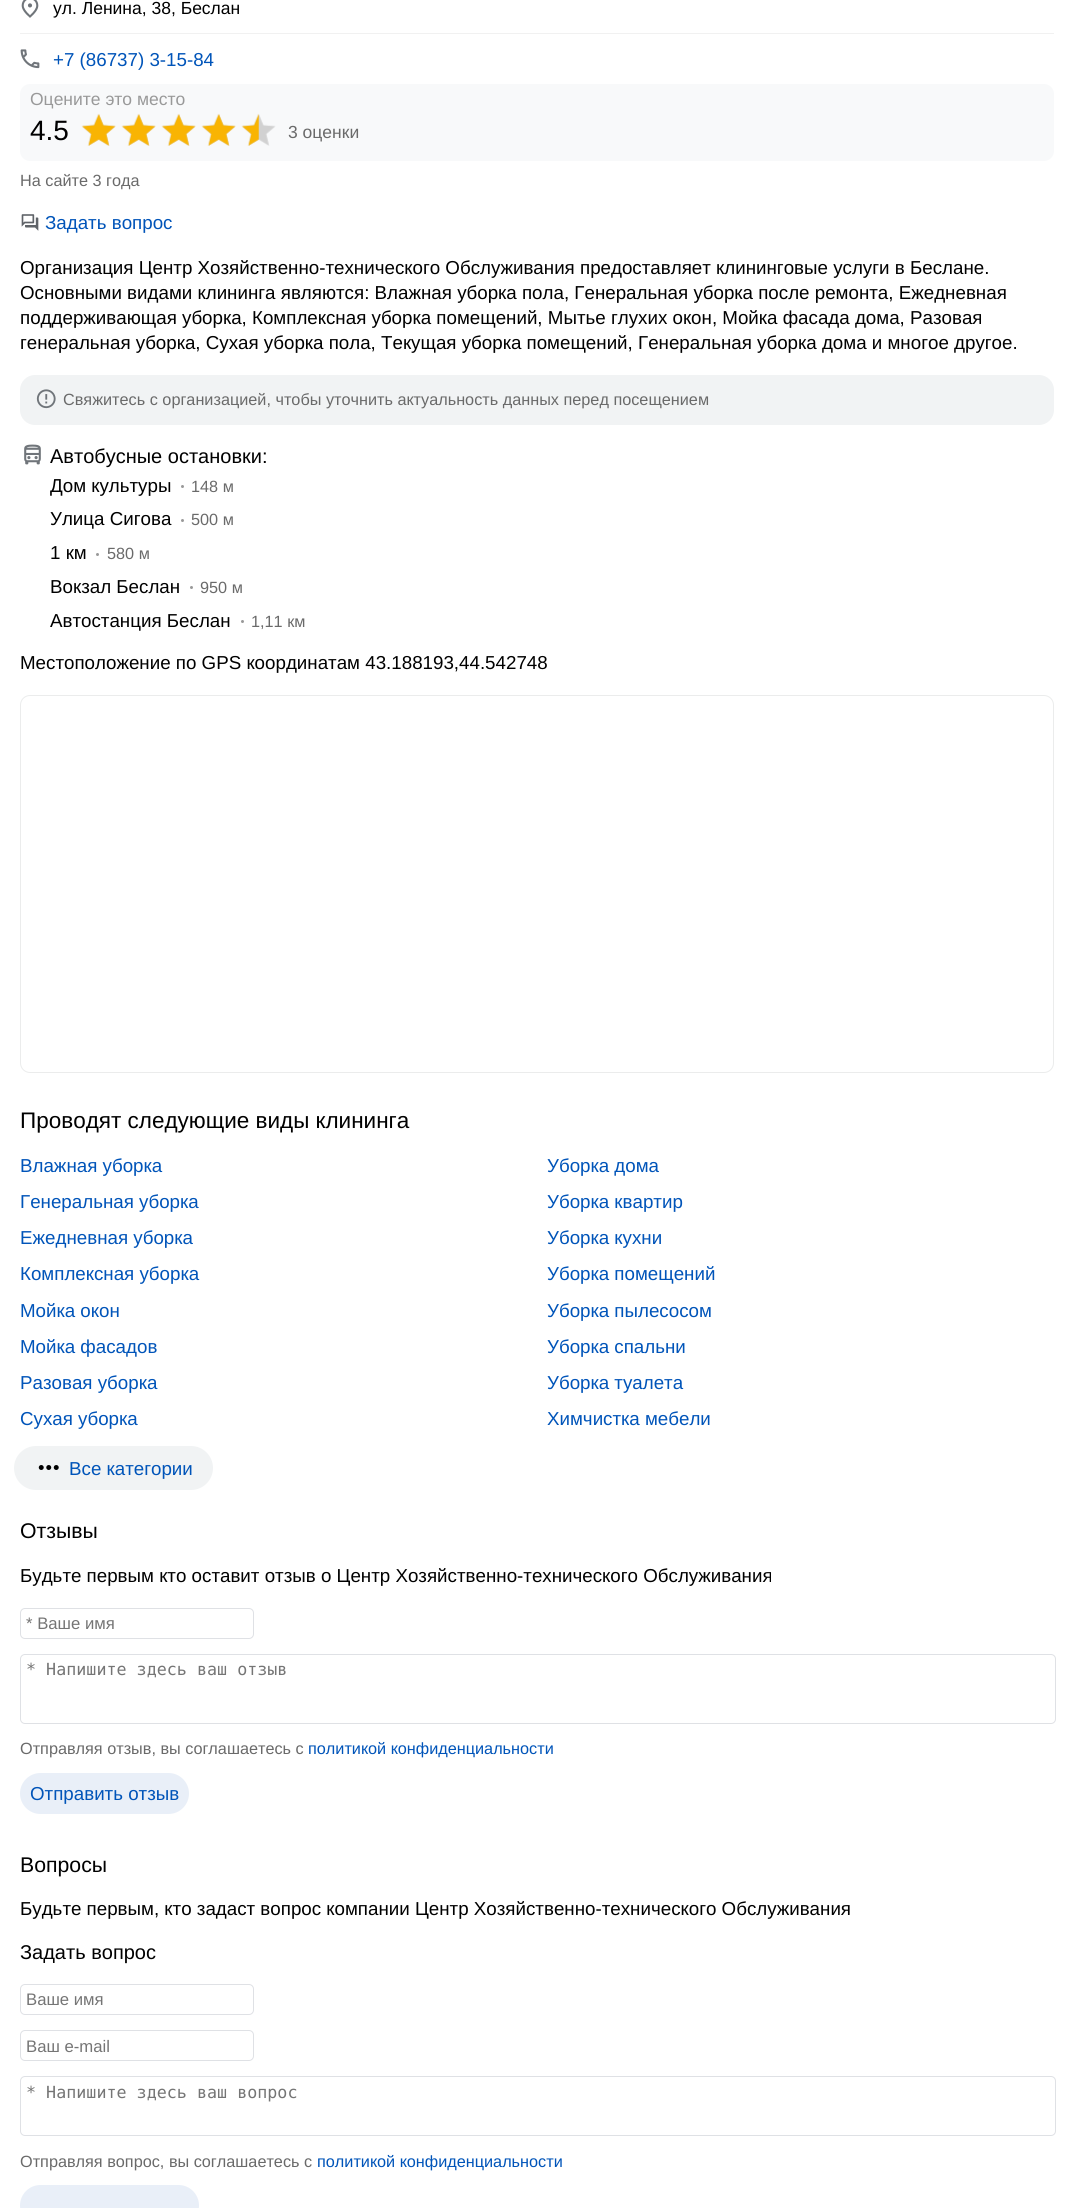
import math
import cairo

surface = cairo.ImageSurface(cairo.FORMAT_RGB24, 1073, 2208)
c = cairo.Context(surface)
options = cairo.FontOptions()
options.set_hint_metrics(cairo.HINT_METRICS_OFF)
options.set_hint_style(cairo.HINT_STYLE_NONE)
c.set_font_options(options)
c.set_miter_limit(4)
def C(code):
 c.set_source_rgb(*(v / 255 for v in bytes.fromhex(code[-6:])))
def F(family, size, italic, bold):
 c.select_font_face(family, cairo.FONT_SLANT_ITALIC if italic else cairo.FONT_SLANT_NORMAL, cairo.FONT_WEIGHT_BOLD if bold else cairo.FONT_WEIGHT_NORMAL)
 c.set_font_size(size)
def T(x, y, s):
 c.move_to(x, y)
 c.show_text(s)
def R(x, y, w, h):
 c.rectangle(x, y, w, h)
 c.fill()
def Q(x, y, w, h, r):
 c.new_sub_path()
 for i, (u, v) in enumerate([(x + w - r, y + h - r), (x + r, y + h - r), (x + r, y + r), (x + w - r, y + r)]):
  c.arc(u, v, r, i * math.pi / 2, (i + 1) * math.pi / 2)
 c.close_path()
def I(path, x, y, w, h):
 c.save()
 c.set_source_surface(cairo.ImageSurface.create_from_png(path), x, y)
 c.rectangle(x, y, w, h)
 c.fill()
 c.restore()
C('ffffff')
c.paint()
I('1.png',21,0,18,18)
F('Liberation Sans',17.5,0,0)
C('000000')
T(53,14,'ул. Ленина, 38, Беслан')
C('f1f1f1')
R(20,33,1034,1)
I('2.png',20,49,20,20)
F('Liberation Sans',18.75,0,0)
C('0054b9')
T(53,66,'+7 (86737) 3-15-84')
C('f8f9fa')
Q(20,84,1034,77,10)
c.fill()
F('Liberation Sans',17.5,0,0)
C('999999')
T(30,105,'Оцените это место')
F('Liberation Sans',28,0,0)
C('000000')
T(30,140,'4.5')
I('4.png',82,114,194,32)
I('3.png',81,113,178,33)
F('Liberation Sans',17.5,0,0)
C('6a6a6a')
T(288,138,'3 оценки')
F('Liberation Sans',16.25,0,0)
T(20,186,'На сайте 3 года')
I('5.png',21,214,18,17)
F('Liberation Sans',18.75,0,0)
C('0054b9')
T(45,229,'Задать вопрос')
C('000000')
T(20,274,'Организация Центр Хозяйственно-технического Обслуживания предоставляет клининговые услуги в Беслане.')
T(20,299,'Основными видами клининга являются: Влажная уборка пола, Генеральная уборка после ремонта, Ежедневная')
T(20,324,'поддерживающая уборка, Комплексная уборка помещений, Мытье глухих окон, Мойка фасада дома, Разовая')
T(20,349,'генеральная уборка, Сухая уборка пола, Текущая уборка помещений, Генеральная уборка дома и многое другое.')
C('f1f3f4')
Q(20,375,1034,50,15)
c.fill()
I('6.png',36,389,20,20)
F('Liberation Sans',16.25,0,0)
C('6a6a6a')
T(63,405,'Свяжитесь с организацией, чтобы уточнить актуальность данных перед посещением')
I('7.png',24,444,17,21)
F('Liberation Sans',20,0,0)
C('000000')
T(50,463,'Автобусные остановки:')
F('Liberation Sans',18.75,0,0)
T(50,492,'Дом культуры')
C('999999')
c.new_path()
c.arc(182.5,486.5,1.5,0,2 * math.pi)
c.fill()
F('Liberation Sans',16.25,0,0)
C('6a6a6a')
T(191,492,'148 м')
F('Liberation Sans',18.75,0,0)
C('000000')
T(50,525,'Улица Сигова')
C('999999')
c.new_path()
c.arc(182.5,520.5,1.5,0,2 * math.pi)
c.fill()
F('Liberation Sans',16.25,0,0)
C('6a6a6a')
T(191,525,'500 м')
F('Liberation Sans',18.75,0,0)
C('000000')
T(50,559,'1 км')
C('999999')
c.new_path()
c.arc(97.5,554.5,1.5,0,2 * math.pi)
c.fill()
F('Liberation Sans',16.25,0,0)
C('6a6a6a')
T(107,559,'580 м')
F('Liberation Sans',18.75,0,0)
C('000000')
T(50,593,'Вокзал Беслан')
C('999999')
c.new_path()
c.arc(191.5,587.5,1.5,0,2 * math.pi)
c.fill()
F('Liberation Sans',16.25,0,0)
C('6a6a6a')
T(200,593,'950 м')
F('Liberation Sans',18.75,0,0)
C('000000')
T(50,627,'Автостанция Беслан')
C('999999')
c.new_path()
c.arc(242.5,621.5,1.5,0,2 * math.pi)
c.fill()
F('Liberation Sans',16.25,0,0)
C('6a6a6a')
T(251,627,'1,11 км')
F('Liberation Sans',18.75,0,0)
C('000000')
T(20,669,'Местоположение по GPS координатам 43.188193,44.542748')
Q(20.5,695.5,1033,377,9.5)
C('ebecec')
c.set_line_width(1)
c.stroke()
F('Liberation Sans',22.5,0,0)
C('000000')
T(20,1128,'Проводят следующие виды клининга')
F('Liberation Sans',18.75,0,0)
C('0054b9')
T(20,1172,'Влажная уборка')
T(547,1172,'Уборка дома')
T(20,1208,'Генеральная уборка')
T(547,1208,'Уборка квартир')
T(20,1244,'Ежедневная уборка')
T(547,1244,'Уборка кухни')
T(20,1280,'Комплексная уборка')
T(547,1280,'Уборка помещений')
T(20,1317,'Мойка окон')
T(547,1317,'Уборка пылесосом')
T(20,1353,'Мойка фасадов')
T(547,1353,'Уборка спальни')
T(20,1389,'Разовая уборка')
T(547,1389,'Уборка туалета')
T(20,1425,'Сухая уборка')
T(547,1425,'Химчистка мебели')
C('f1f3f4')
Q(14,1446,199,44,22)
c.fill()
I('8.png',38,1465,21,5)
C('0054b9')
T(69,1475,'Все категории')
F('Liberation Sans',21.25,0,0)
C('000000')
T(20,1538,'Отзывы')
F('Liberation Sans',18.75,0,0)
T(20,1582,'Будьте первым кто оставит отзыв о Центр Хозяйственно-технического Обслуживания')
Q(20.5,1608.5,233,30,4.5)
C('dfe1e5')
c.stroke()
F('Liberation Sans',16.7,0,0)
C('757575')
T(26,1629,'* Ваше имя')
Q(20.5,1654.5,1035,69,4.5)
C('dfe1e5')
c.stroke()
F('DejaVu Sans Mono',16.7,0,0)
C('757575')
T(26,1675,'* Напишите здесь ваш отзыв')
F('Liberation Sans',16.25,0,0)
C('6a6a6a')
T(20,1754,'Отправляя отзыв, вы соглашаетесь с')
C('0054b9')
T(308,1754,'политикой конфиденциальности')
C('e9eff8')
Q(20,1773,169,41,20.5)
c.fill()
F('Liberation Sans',18.75,0,0)
C('0054b9')
T(30,1800,'Отправить отзыв')
F('Liberation Sans',21.25,0,0)
C('000000')
T(20,1872,'Вопросы')
F('Liberation Sans',18.75,0,0)
T(20,1915,'Будьте первым, кто задаст вопрос компании Центр Хозяйственно-технического Обслуживания')
F('Liberation Sans',20,0,0)
T(20,1959,'Задать вопрос')
Q(20.5,1984.5,233,30,4.5)
C('dfe1e5')
c.stroke()
F('Liberation Sans',16.7,0,0)
C('757575')
T(26,2005,'Ваше имя')
Q(20.5,2030.5,233,30,4.5)
C('dfe1e5')
c.stroke()
C('757575')
T(26,2052,'Ваш e-mail')
Q(20.5,2076.5,1035,59,4.5)
C('dfe1e5')
c.stroke()
F('DejaVu Sans Mono',16.7,0,0)
C('757575')
T(26,2098,'* Напишите здесь ваш вопрос')
F('Liberation Sans',16.25,0,0)
C('6a6a6a')
T(20,2167,'Отправляя вопрос, вы соглашаетесь с')
C('0054b9')
T(317,2167,'политикой конфиденциальности')
C('e9eff8')
Q(20,2185,179,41,20.5)
c.fill()
surface.write_to_png('o.png')
